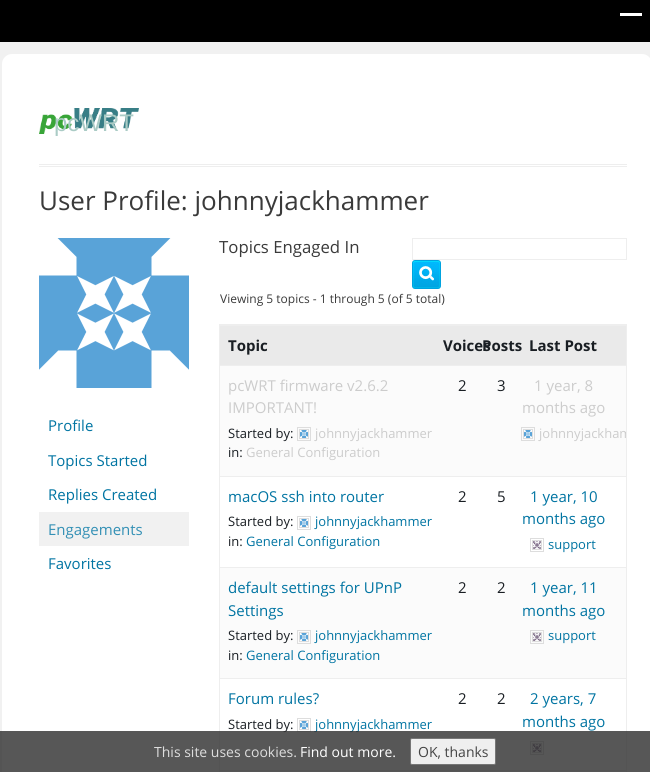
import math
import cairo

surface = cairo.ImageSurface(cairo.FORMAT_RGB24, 650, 772)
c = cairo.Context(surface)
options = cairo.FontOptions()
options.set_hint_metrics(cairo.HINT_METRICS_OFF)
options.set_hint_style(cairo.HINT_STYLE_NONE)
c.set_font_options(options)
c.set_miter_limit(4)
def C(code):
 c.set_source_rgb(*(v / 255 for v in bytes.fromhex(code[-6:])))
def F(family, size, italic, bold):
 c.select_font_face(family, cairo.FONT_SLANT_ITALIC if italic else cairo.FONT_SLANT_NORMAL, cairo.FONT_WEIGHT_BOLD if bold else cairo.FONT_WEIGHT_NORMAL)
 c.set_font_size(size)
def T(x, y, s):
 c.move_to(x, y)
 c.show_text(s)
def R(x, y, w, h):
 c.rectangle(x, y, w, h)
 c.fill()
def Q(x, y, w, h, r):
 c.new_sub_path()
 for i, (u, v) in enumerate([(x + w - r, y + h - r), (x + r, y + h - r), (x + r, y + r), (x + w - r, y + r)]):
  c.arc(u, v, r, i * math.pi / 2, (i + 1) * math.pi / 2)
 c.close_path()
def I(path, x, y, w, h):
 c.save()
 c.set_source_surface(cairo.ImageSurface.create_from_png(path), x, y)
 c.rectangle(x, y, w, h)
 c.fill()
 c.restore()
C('f1f1f1')
c.paint()
C('000000')
R(0,0,650,42)
C('ffffff')
R(620,13,22,3)
c.new_path()
c.move_to(12,54)
c.line_to(642,54)
c.curve_to(647.5,54,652,58.5,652,64)
c.line_to(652,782)
c.line_to(2,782)
c.line_to(2,64)
c.curve_to(2,58.5,6.5,54,12,54)
c.close_path()
c.fill()
I('1.png',39,108,100,26)
F('Liberation Sans',24,0,0)
C('aacbc5')
T(54,131,'pcWRT')
C('eeeeee')
R(39,164,588,1)
R(39,166,588,1)
F('Open Sans',26,0,0)
C('3a3a3a')
T(39,210,'User Profile: johnnyjackhammer')
I('2.png',39,238,150,150)
F('Open Sans',15,0,0)
C('0074a2')
T(48,431,'Profile')
T(48,466,'Topics Started')
T(48,500,'Replies Created')
C('f1f1f1')
R(39,512,150,34)
C('3390b5')
T(48,535,'Engagements')
C('0074a2')
T(48,569,'Favorites')
F('Open Sans',16.75,0,0)
C('3a3a3a')
T(219,253,'Topics Engaged In')
c.rectangle(412.5,238.5,214,21)
C('eeeeee')
c.set_line_width(1)
c.stroke()
I('3.png',412,260,29,29)
F('Open Sans',12,0,0)
C('3a3a3a')
T(220,303,'Viewing 5 topics - 1 through 5 (of 5 total)')
c.rectangle(219.5,324.5,407,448)
C('eeeeee')
c.stroke()
C('eaeaea')
R(220,326,406,39)
C('eeeeee')
R(220,325,406,1)
F('Open Sans',15,0,1)
C('191e23')
T(228,351,'Topic')
T(443,351,'Voices')
T(482,351,'Posts')
T(529,351,'Last Post')
C('fbfbfb')
R(220,366,406,110)
C('eeeeee')
R(220,365,406,1)
F('Open Sans',15,0,0)
C('cccccc')
T(228,391,'pcWRT firmware v2.6.2')
T(228,413,'IMPORTANT!')
F('Open Sans',13,0,0)
C('191e23')
T(228,438,'Started by:')
c.rectangle(297.5,427.5,13,13)
C('dddddd')
c.stroke()
c.rectangle(299.5,429.5,9,9)
c.stroke()
I('4.png',300,430,8,8)
C('cccccc')
T(315,438,'johnnyjackhammer')
C('191e23')
T(228,457,'in:')
C('cccccc')
T(246,457,'General Configuration')
F('Open Sans',15,0,0)
C('191e23')
T(458,391,'2')
T(497,391,'3')
C('cccccc')
T(534,391,'1 year, 8')
T(522,413,'months ago')
c.rectangle(521.5,427.5,13,13)
C('dddddd')
c.stroke()
c.rectangle(523.5,429.5,9,9)
c.stroke()
I('4.png',524,430,8,8)
c.save()
c.rectangle(220,366,406,110)
c.clip()
F('Open Sans',13,0,0)
C('cccccc')
T(539,438,'johnnyjackham')
c.restore()
C('eeeeee')
R(220,476,406,1)
C('0074a2')
T(228,502,'macOS ssh into router')
F('Open Sans',13,0,0)
C('191e23')
T(228,526,'Started by:')
c.rectangle(297.5,516.5,13,13)
C('dddddd')
c.stroke()
c.rectangle(299.5,518.5,9,9)
c.stroke()
I('5.png',300,519,8,8)
C('0074a2')
T(315,526,'johnnyjackhammer')
C('191e23')
T(228,546,'in:')
C('0074a2')
T(246,546,'General Configuration')
F('Open Sans',15,0,0)
C('191e23')
T(458,502,'2')
T(497,502,'5')
C('0074a2')
T(530,502,'1 year, 10')
T(522,524,'months ago')
c.rectangle(530.5,538.5,13,13)
C('dddddd')
c.stroke()
c.rectangle(532.5,540.5,9,9)
c.stroke()
I('6.png',533,541,8,8)
F('Open Sans',13,0,0)
C('0074a2')
T(548,549,'support')
C('fbfbfb')
R(220,568,406,110)
C('eeeeee')
R(220,567,406,1)
F('Open Sans',15,0,0)
C('0074a2')
T(228,593,'default settings for UPnP')
T(228,616,'Settings')
F('Open Sans',13,0,0)
C('191e23')
T(228,640,'Started by:')
c.rectangle(297.5,630.5,13,13)
C('dddddd')
c.stroke()
c.rectangle(299.5,632.5,9,9)
c.stroke()
I('4.png',300,633,8,8)
C('0074a2')
T(315,640,'johnnyjackhammer')
C('191e23')
T(228,660,'in:')
C('0074a2')
T(246,660,'General Configuration')
F('Open Sans',15,0,0)
C('191e23')
T(458,593,'2')
T(497,593,'2')
C('0074a2')
T(530,593,'1 year, 11')
T(522,616,'months ago')
c.rectangle(530.5,630.5,13,13)
C('dddddd')
c.stroke()
c.rectangle(532.5,632.5,9,9)
c.stroke()
I('7.png',533,633,8,8)
F('Open Sans',13,0,0)
C('0074a2')
T(548,640,'support')
C('eeeeee')
R(220,678,406,1)
F('Open Sans',15,0,0)
C('0074a2')
T(228,704,'Forum rules?')
F('Open Sans',13,0,0)
C('191e23')
T(228,729,'Started by:')
c.rectangle(297.5,718.5,13,13)
C('dddddd')
c.stroke()
c.rectangle(299.5,720.5,9,9)
c.stroke()
I('4.png',300,721,8,8)
C('0074a2')
T(315,729,'johnnyjackhammer')
F('Open Sans',15,0,0)
C('191e23')
T(458,704,'2')
T(497,704,'2')
C('0074a2')
T(530,704,'2 years, 7')
T(522,727,'months ago')
c.rectangle(530.5,741.5,13,13)
C('dddddd')
c.stroke()
c.rectangle(532.5,743.5,9,9)
c.stroke()
I('7.png',533,744,8,8)
C('fbfbfb')
R(220,771,406,1)
C('eeeeee')
R(220,770,406,1)
c.set_source_rgba(0.18,0.18,0.18,0.8)
R(0,731,650,41)
F('Open Sans',14,0,0)
C('dddddd')
T(154,757,'This site uses cookies.')
C('ffffff')
T(300,757,'Find out more.')
C('efefef')
Q(410.5,738.5,85,26,1.5)
c.fill_preserve()
C('767676')
c.stroke()
C('444444')
T(418,757,'OK, thanks')
surface.write_to_png('o.png')
